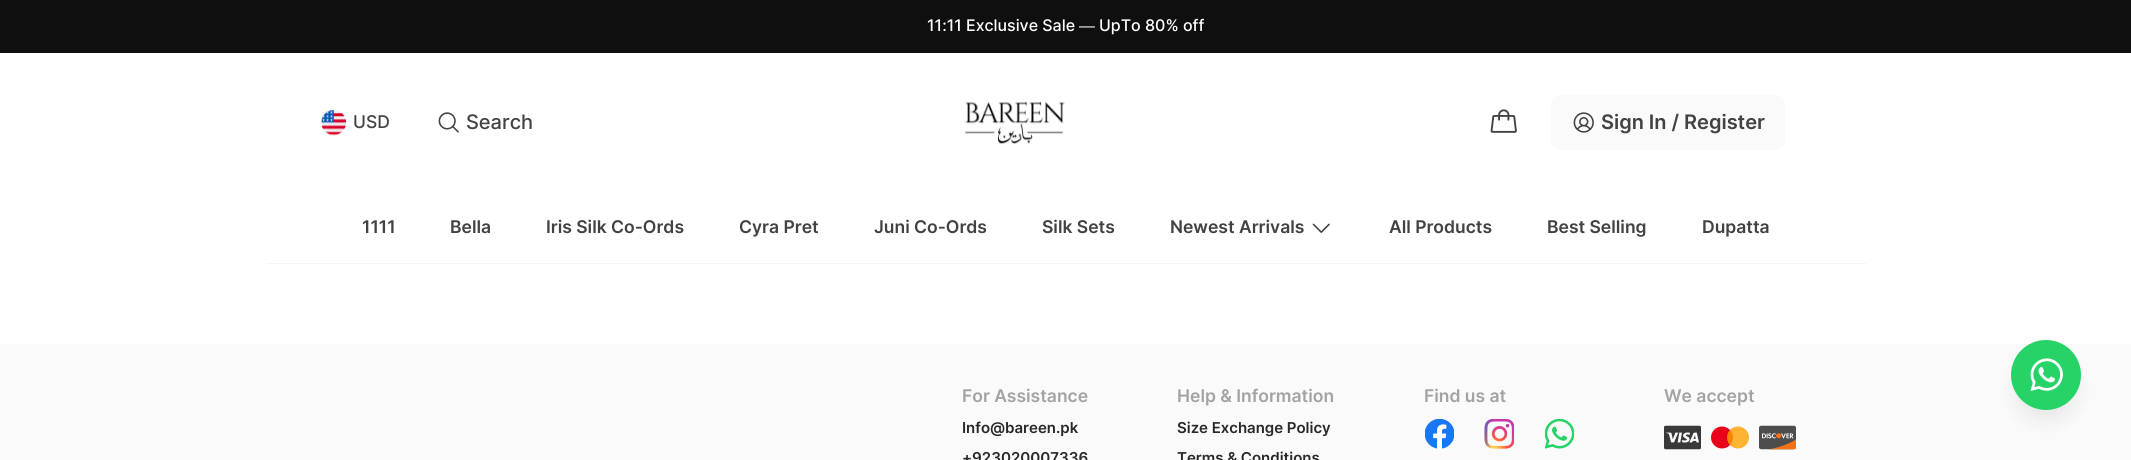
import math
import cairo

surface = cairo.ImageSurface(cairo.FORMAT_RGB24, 2131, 460)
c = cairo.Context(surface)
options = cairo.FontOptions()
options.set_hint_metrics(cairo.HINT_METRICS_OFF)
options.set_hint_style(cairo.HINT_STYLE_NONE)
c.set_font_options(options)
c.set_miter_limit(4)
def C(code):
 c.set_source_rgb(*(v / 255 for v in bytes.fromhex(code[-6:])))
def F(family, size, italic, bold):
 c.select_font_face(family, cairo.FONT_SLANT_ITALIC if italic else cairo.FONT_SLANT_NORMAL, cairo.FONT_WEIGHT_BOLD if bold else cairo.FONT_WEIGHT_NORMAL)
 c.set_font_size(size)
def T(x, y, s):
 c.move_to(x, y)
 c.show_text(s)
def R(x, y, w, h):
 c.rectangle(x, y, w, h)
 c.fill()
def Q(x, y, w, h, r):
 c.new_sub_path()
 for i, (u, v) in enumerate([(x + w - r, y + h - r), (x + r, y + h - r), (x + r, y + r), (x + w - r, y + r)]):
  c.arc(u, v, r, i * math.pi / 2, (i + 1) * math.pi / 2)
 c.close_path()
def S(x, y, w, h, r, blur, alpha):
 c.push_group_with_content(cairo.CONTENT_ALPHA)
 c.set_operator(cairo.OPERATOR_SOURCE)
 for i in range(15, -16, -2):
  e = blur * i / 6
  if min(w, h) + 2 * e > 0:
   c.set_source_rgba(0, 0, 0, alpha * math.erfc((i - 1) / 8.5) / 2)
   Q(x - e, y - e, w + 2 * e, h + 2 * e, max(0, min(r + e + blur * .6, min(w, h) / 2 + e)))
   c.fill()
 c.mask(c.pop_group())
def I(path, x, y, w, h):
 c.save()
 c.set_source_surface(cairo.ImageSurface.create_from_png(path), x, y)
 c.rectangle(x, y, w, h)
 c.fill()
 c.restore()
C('ffffff')
c.paint()
C('0f0f0f')
R(0,0,2131,53)
F('Inter Medium',16,0,0)
C('ffffff')
T(927,31,'11:11 Exclusive Sale')
F('Liberation Sans',16,0,0)
T(1079,31,'—')
F('Inter Medium',16,0,0)
T(1099,31,'UpTo 80% off')
C('f5f5f5')
R(266,263,1600,1)
I('1.png',321,110,25,26)
F('Inter Medium',17.5,0,0)
C('424242')
T(353,128,'USD')
I('2.png',438,112,21,21)
F('Inter Medium',20,0,0)
T(466,129,'Search')
I('3.png',965,101,100,43)
I('4.png',1490,109,27,24)
C('fafafa')
Q(1551,95,234,55,10)
c.fill()
I('5.png',1573,112,21,21)
F('Inter SemiBold',20,0,0)
C('424242')
T(1601,129,'Sign In / Register')
F('Inter SemiBold',17.5,0,0)
T(362,233,'1111')
T(450,233,'Bella')
T(546,233,'Iris Silk Co-Ords')
T(739,233,'Cyra Pret')
T(874,233,'Juni Co-Ords')
T(1042,233,'Silk Sets')
T(1170,233,'Newest Arrivals')
I('6.png',1312,223,18,10)
T(1389,233,'All Products')
T(1547,233,'Best Selling')
T(1702,233,'Dupatta')
C('fafafa')
R(0,344,2131,116)
C('a3a3a3')
T(962,402,'For Assistance')
F('Inter SemiBold',15,0,0)
C('292929')
T(962,433,'Info@bareen.pk')
T(962,463,'+923020007336')
F('Inter SemiBold',17.5,0,0)
C('a3a3a3')
T(1177,402,'Help & Information')
F('Inter SemiBold',15,0,0)
C('292929')
T(1177,433,'Size Exchange Policy')
T(1177,463,'Terms & Conditions')
F('Inter SemiBold',17.5,0,0)
C('a3a3a3')
T(1424,402,'Find us at')
I('7.png',1425,419,29,30)
I('8.png',1484,419,30,30)
I('9.png',1545,419,29,30)
T(1664,402,'We accept')
I('10.png',1664,425,37,25)
C('ea001b')
c.arc(1722,437.5,11,0,2 * math.pi)
c.fill()
c.set_source_rgba(1,0.635,0,0.8)
c.arc(1738,437.5,11,0,2 * math.pi)
c.fill()
I('11.png',1759,425,37,25)
C('141414')
S(2016,360,60,60,30,10,.08)
C('25d366')
c.arc(2046,375,35,0,2 * math.pi)
c.fill()
I('12.png',2030,358,33,33)
surface.write_to_png('o.png')
